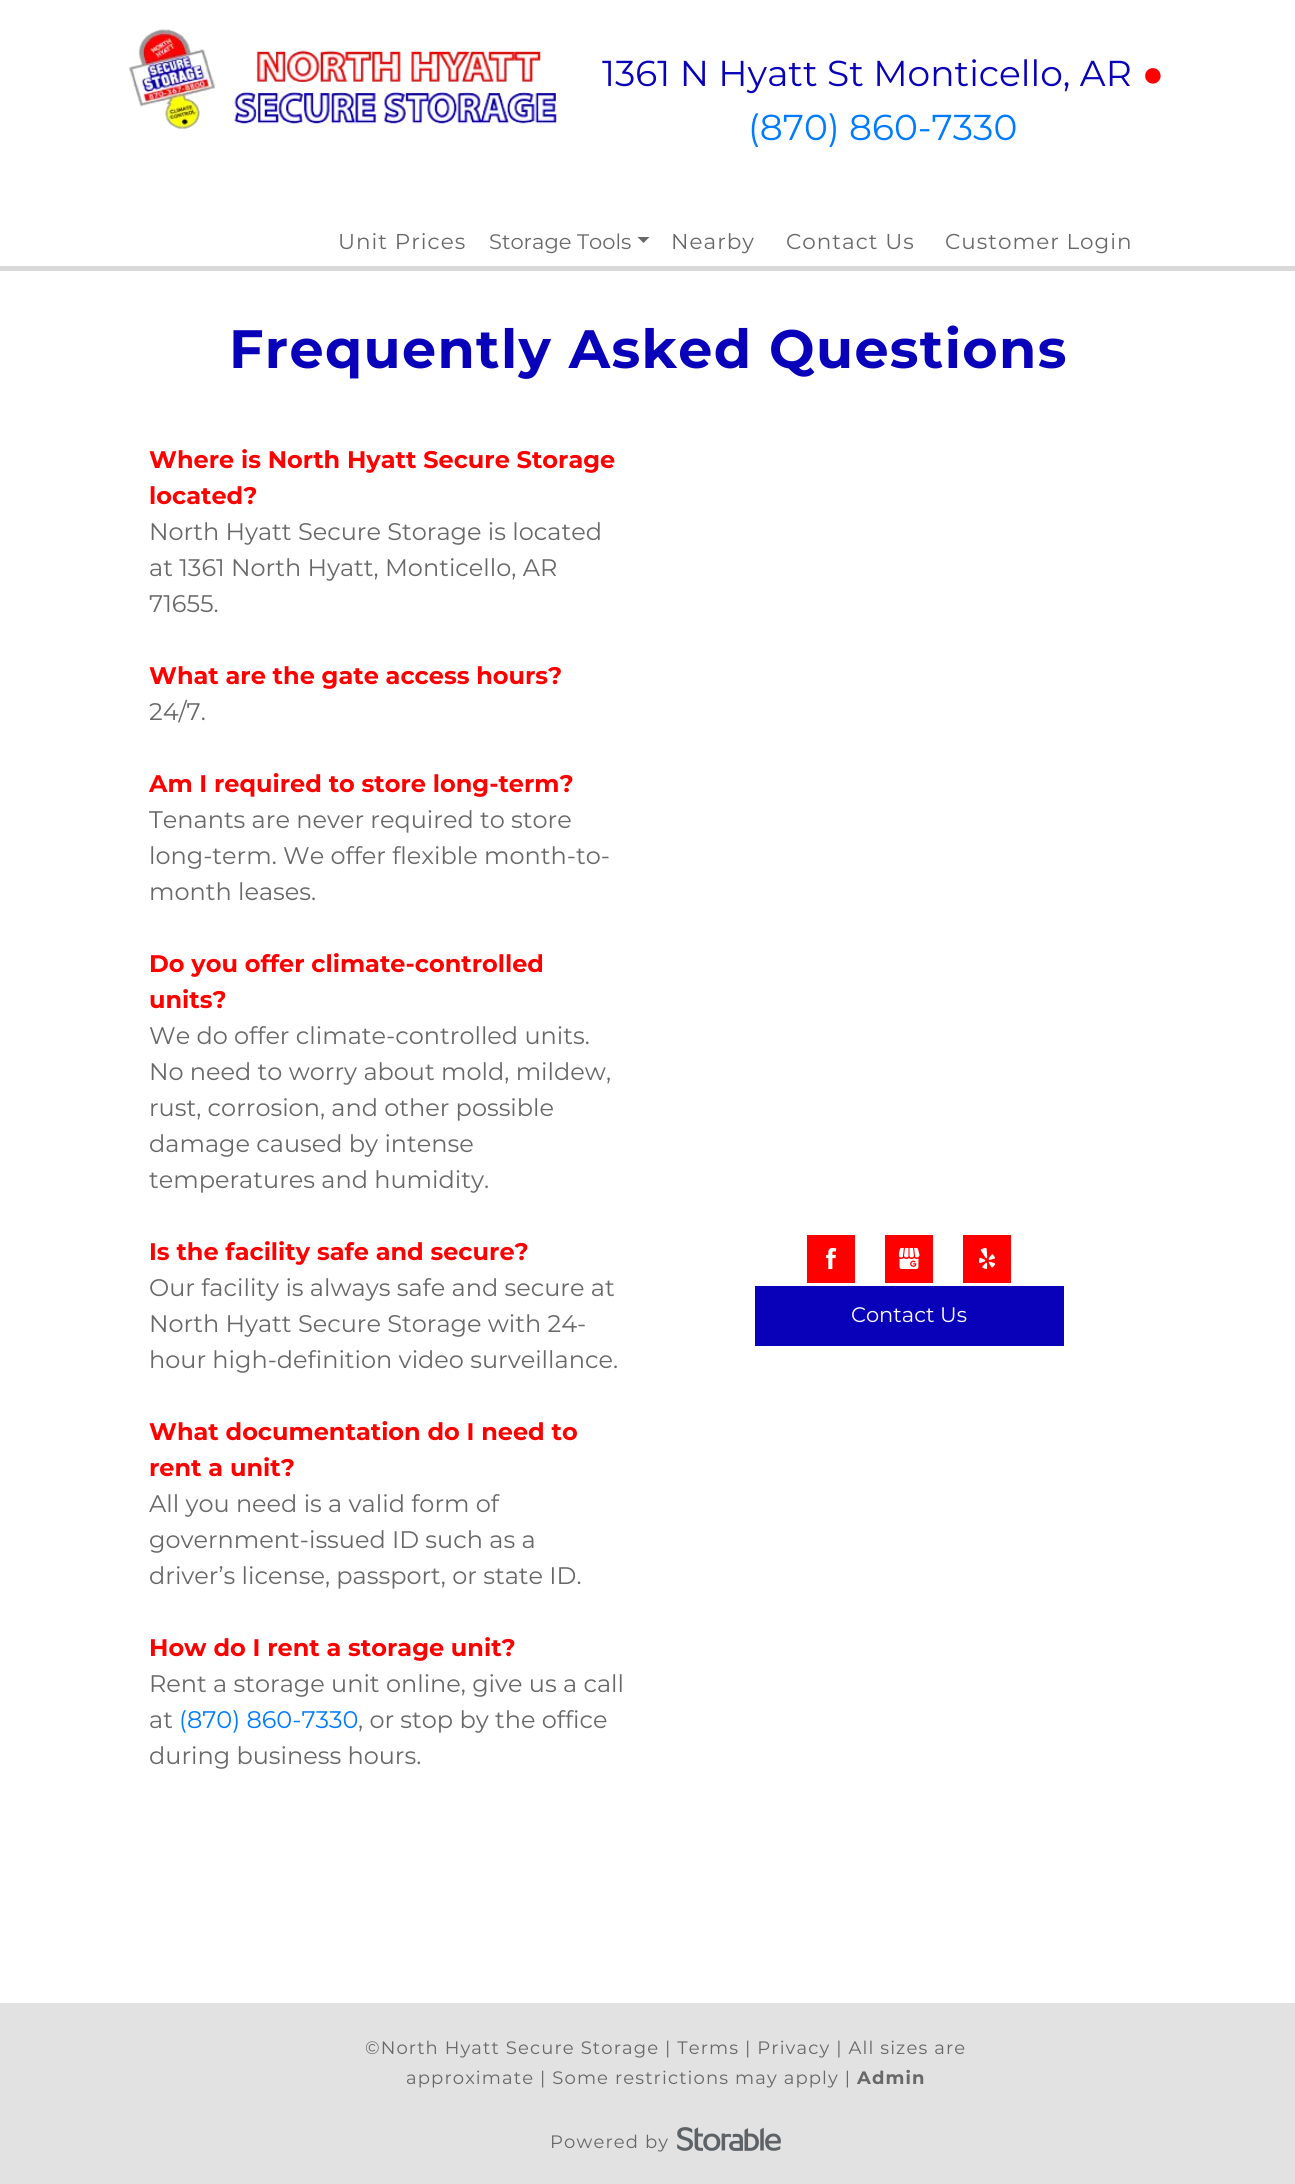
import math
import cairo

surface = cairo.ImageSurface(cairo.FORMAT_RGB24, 1295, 2184)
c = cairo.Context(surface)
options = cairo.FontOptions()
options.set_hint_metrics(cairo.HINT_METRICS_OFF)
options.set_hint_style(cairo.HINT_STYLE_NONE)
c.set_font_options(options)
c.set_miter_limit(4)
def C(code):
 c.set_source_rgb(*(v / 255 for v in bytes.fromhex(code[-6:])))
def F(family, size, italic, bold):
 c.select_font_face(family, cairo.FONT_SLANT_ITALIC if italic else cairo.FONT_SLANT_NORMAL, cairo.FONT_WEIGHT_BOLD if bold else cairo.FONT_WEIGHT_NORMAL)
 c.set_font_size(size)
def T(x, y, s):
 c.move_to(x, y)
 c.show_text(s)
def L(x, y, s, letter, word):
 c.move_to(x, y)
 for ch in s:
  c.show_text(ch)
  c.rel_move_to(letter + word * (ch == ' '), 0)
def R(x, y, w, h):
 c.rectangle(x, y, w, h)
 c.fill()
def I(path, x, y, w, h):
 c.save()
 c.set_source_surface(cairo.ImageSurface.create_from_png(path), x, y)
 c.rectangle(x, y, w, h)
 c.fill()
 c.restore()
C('ffffff')
c.paint()
I('1.png',129,29,428,100)
F('Montserrat',36,0,0)
C('0900b9')
T(602,86,'1361 N Hyatt St Monticello, AR')
F('Liberation Sans',36,0,0)
C('ff0000')
T(1142,86,'●')
F('Montserrat',36,0,0)
C('007bff')
T(748,140,'(870) 860-7330')
C('d9d9d9')
R(0,266,1295,5)
F('Montserrat',21.5,0,0)
C('686868')
L(338,249,'Unit Prices',1,0)
F('Montserrat',21,0,0)
T(489,249,'Storage Tools')
c.new_path()
c.move_to(637.5,237)
c.line_to(649.5,237)
c.line_to(643.5,243)
c.close_path()
c.fill()
F('Montserrat',21.5,0,0)
L(671,249,'Nearby',1,0)
L(786,249,'Contact Us',1,0)
L(945,249,'Customer Login',1,0)
F('Montserrat',54,0,1)
C('0900b9')
L(229,368,'Frequently Asked Questions',1.35,0)
F('Montserrat',24,0,1)
C('ff0000')
T(149,468,'Where is North Hyatt Secure Storage')
T(149,504,'located?')
F('Montserrat',24,0,0)
C('686868')
T(149,540,'North Hyatt Secure Storage is located')
T(149,576,'at 1361 North Hyatt, Monticello, AR')
T(149,612,'71655.')
F('Montserrat',24,0,1)
C('ff0000')
T(149,684,'What are the gate access hours?')
F('Montserrat',24,0,0)
C('686868')
T(149,720,'24/7.')
F('Montserrat',24,0,1)
C('ff0000')
T(149,792,'Am I required to store long-term?')
F('Montserrat',24,0,0)
C('686868')
T(149,828,'Tenants are never required to store')
T(149,864,'long-term. We offer flexible month-to-')
T(149,900,'month leases.')
F('Montserrat',24,0,1)
C('ff0000')
T(149,972,'Do you offer climate-controlled')
T(149,1008,'units?')
F('Montserrat',24,0,0)
C('686868')
T(149,1044,'We do offer climate-controlled units.')
T(149,1080,'No need to worry about mold, mildew,')
T(149,1116,'rust, corrosion, and other possible')
T(149,1152,'damage caused by intense')
T(149,1188,'temperatures and humidity.')
F('Montserrat',24,0,1)
C('ff0000')
T(149,1260,'Is the facility safe and secure?')
F('Montserrat',24,0,0)
C('686868')
T(149,1296,'Our facility is always safe and secure at')
T(149,1332,'North Hyatt Secure Storage with 24-')
T(149,1368,'hour high-definition video surveillance.')
F('Montserrat',24,0,1)
C('ff0000')
T(149,1440,'What documentation do I need to')
T(149,1476,'rent a unit?')
F('Montserrat',24,0,0)
C('686868')
T(149,1512,'All you need is a valid form of')
T(149,1548,'government-issued ID such as a')
T(149,1584,'driver’s license, passport, or state ID.')
F('Montserrat',24,0,1)
C('ff0000')
T(149,1656,'How do I rent a storage unit?')
F('Montserrat',24,0,0)
C('686868')
T(149,1692,'Rent a storage unit online, give us a call')
T(149,1728,'at')
C('007bff')
T(179,1728,'(870) 860-7330')
C('686868')
T(358,1728,', or stop by the office')
T(149,1764,'during business hours.')
C('ff0000')
R(807,1235,48,48)
I('2.png',826,1248,11,21)
R(885,1235,48,48)
I('3.png',899,1248,21,21)
R(963,1235,48,48)
I('4.png',979,1248,17,21)
C('0900b9')
R(755,1286,309,60)
F('Montserrat',21,0,0)
C('ffffff')
T(851,1322,'Contact Us')
C('e2e2e2')
R(0,2003,1295,181)
F('Montserrat',18,0,0)
C('686868')
L(365,2054,'©North Hyatt Secure Storage | Terms | Privacy | All sizes are',1.12,0)
L(406,2084,'approximate | Some restrictions may apply |',1.12,0)
F('Montserrat',18,0,1)
L(857,2084,'Admin',1.12,0)
F('Montserrat',18,0,0)
L(550,2148,'Powered by',1.12,0)
I('5.png',677,2127,104,24)
surface.write_to_png('o.png')
